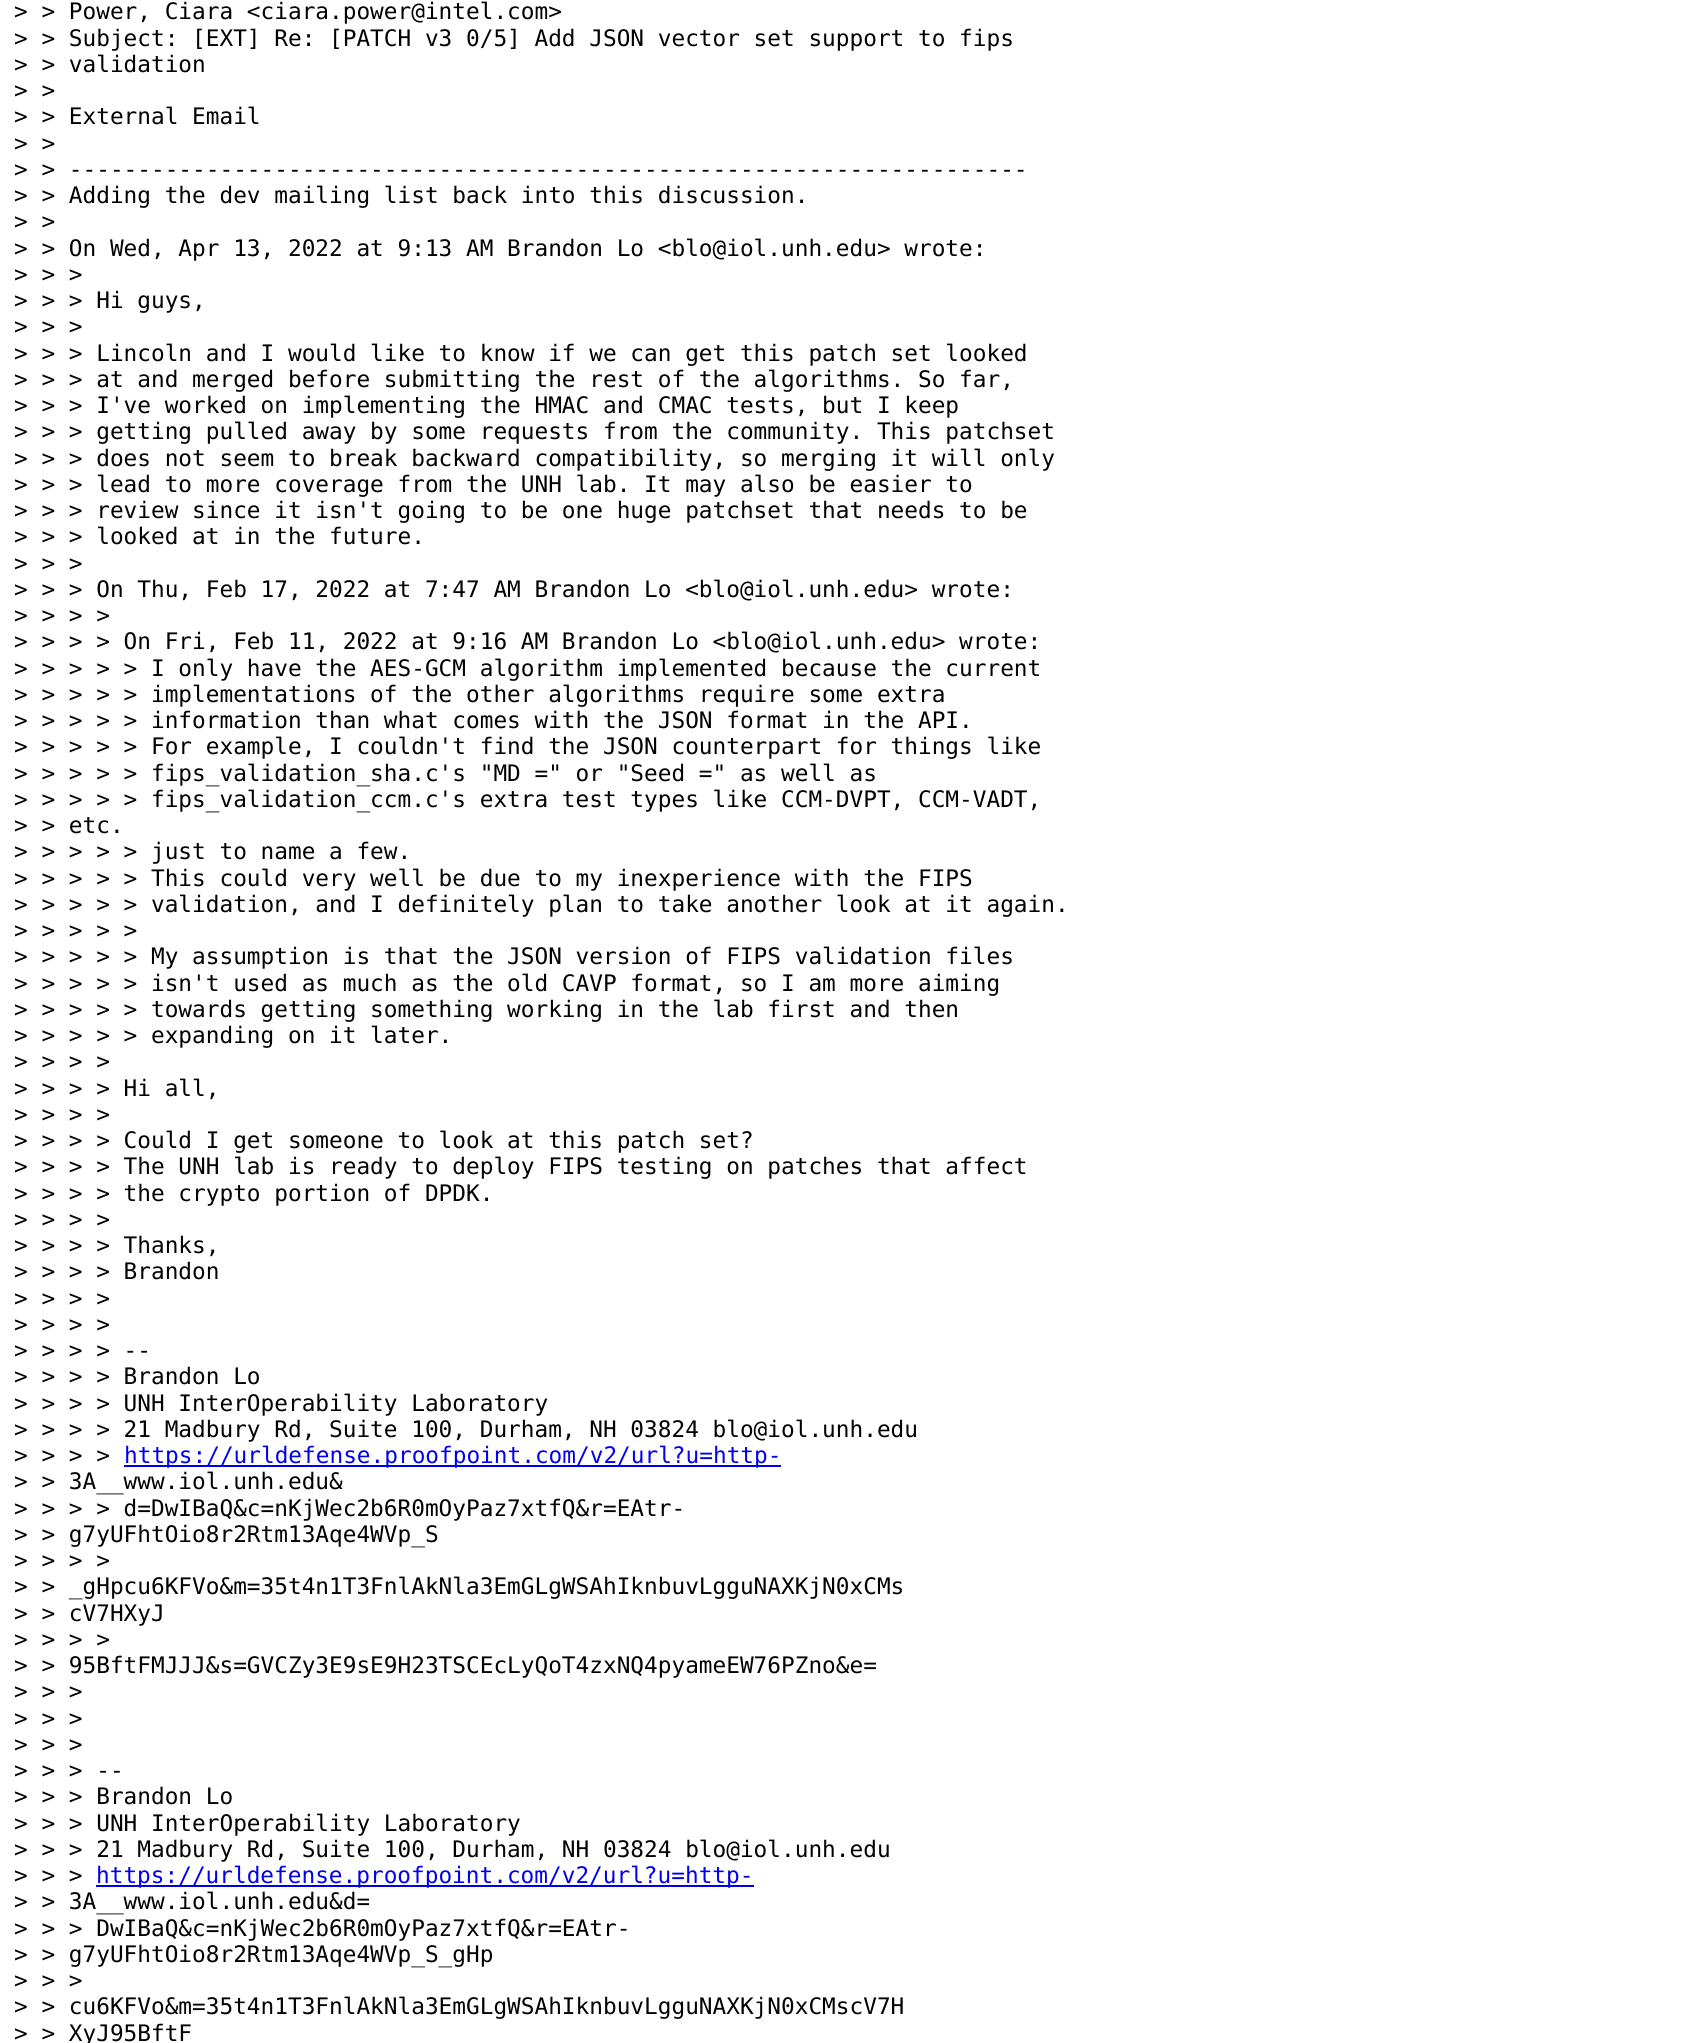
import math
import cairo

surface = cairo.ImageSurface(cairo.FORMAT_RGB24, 1683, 2043)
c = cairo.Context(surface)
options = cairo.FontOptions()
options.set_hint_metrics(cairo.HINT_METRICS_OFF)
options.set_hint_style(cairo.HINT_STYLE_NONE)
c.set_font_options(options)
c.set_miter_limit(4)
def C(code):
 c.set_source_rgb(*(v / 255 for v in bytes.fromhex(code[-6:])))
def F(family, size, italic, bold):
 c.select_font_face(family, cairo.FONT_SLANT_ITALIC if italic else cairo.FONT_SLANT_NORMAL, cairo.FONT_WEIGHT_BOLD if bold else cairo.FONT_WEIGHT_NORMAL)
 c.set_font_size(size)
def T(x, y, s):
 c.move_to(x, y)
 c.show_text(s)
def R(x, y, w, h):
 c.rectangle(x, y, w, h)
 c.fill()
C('ffffff')
c.paint()
F('DejaVu Sans Mono',22.75,0,0)
C('000000')
T(14,19,'> > Power, Ciara <ciara.power@intel.com>')
T(14,46,'> > Subject: [EXT] Re: [PATCH v3 0/5] Add JSON vector set support to fips')
T(14,72,'> > validation')
T(14,98,'> >')
T(14,124,'> > External Email')
T(14,151,'> >')
T(14,177,'> > ----------------------------------------------------------------------')
T(14,203,'> > Adding the dev mailing list back into this discussion.')
T(14,229,'> >')
T(14,256,'> > On Wed, Apr 13, 2022 at 9:13 AM Brandon Lo <blo@iol.unh.edu> wrote:')
T(14,282,'> > >')
T(14,308,'> > > Hi guys,')
T(14,334,'> > >')
T(14,361,'> > > Lincoln and I would like to know if we can get this patch set looked')
T(14,387,'> > > at and merged before submitting the rest of the algorithms. So far,')
T(14,413,'> > > I\'ve worked on implementing the HMAC and CMAC tests, but I keep')
T(14,439,'> > > getting pulled away by some requests from the community. This patchset')
T(14,466,'> > > does not seem to break backward compatibility, so merging it will only')
T(14,492,'> > > lead to more coverage from the UNH lab. It may also be easier to')
T(14,518,'> > > review since it isn\'t going to be one huge patchset that needs to be')
T(14,544,'> > > looked at in the future.')
T(14,571,'> > >')
T(14,597,'> > > On Thu, Feb 17, 2022 at 7:47 AM Brandon Lo <blo@iol.unh.edu> wrote:')
T(14,623,'> > > >')
T(14,649,'> > > > On Fri, Feb 11, 2022 at 9:16 AM Brandon Lo <blo@iol.unh.edu> wrote:')
T(14,676,'> > > > > I only have the AES-GCM algorithm implemented because the current')
T(14,702,'> > > > > implementations of the other algorithms require some extra')
T(14,728,'> > > > > information than what comes with the JSON format in the API.')
T(14,754,'> > > > > For example, I couldn\'t find the JSON counterpart for things like')
T(14,781,'> > > > > fips_validation_sha.c\'s "MD =" or "Seed =" as well as')
T(14,807,'> > > > > fips_validation_ccm.c\'s extra test types like CCM-DVPT, CCM-VADT,')
T(14,833,'> > etc.')
T(14,859,'> > > > > just to name a few.')
T(14,886,'> > > > > This could very well be due to my inexperience with the FIPS')
T(14,912,'> > > > > validation, and I definitely plan to take another look at it again.')
T(14,938,'> > > > >')
T(14,964,'> > > > > My assumption is that the JSON version of FIPS validation files')
T(14,991,'> > > > > isn\'t used as much as the old CAVP format, so I am more aiming')
T(14,1017,'> > > > > towards getting something working in the lab first and then')
T(14,1043,'> > > > > expanding on it later.')
T(14,1069,'> > > >')
T(14,1096,'> > > > Hi all,')
T(14,1122,'> > > >')
T(14,1148,'> > > > Could I get someone to look at this patch set?')
T(14,1174,'> > > > The UNH lab is ready to deploy FIPS testing on patches that affect')
T(14,1201,'> > > > the crypto portion of DPDK.')
T(14,1227,'> > > >')
T(14,1253,'> > > > Thanks,')
T(14,1279,'> > > > Brandon')
T(14,1306,'> > > >')
T(14,1332,'> > > >')
T(14,1358,'> > > > --')
T(14,1384,'> > > > Brandon Lo')
T(14,1411,'> > > > UNH InterOperability Laboratory')
T(14,1437,'> > > > 21 Madbury Rd, Suite 100, Durham, NH 03824 blo@iol.unh.edu')
T(14,1463,'> > > >')
C('0000ee')
R(124,1465,657,2)
T(124,1463,'https://urldefense.proofpoint.com/v2/url?u=http-')
C('000000')
T(14,1489,'> > 3A__www.iol.unh.edu&')
T(14,1516,'> > > > d=DwIBaQ&c=nKjWec2b6R0mOyPaz7xtfQ&r=EAtr-')
T(14,1542,'> > g7yUFhtOio8r2Rtm13Aqe4WVp_S')
T(14,1568,'> > > >')
T(14,1594,'> > _gHpcu6KFVo&m=35t4n1T3FnlAkNla3EmGLgWSAhIknbuvLgguNAXKjN0xCMs')
T(14,1621,'> > cV7HXyJ')
T(14,1647,'> > > >')
T(14,1673,'> > 95BftFMJJJ&s=GVCZy3E9sE9H23TSCEcLyQoT4zxNQ4pyameEW76PZno&e=')
T(14,1699,'> > >')
T(14,1726,'> > >')
T(14,1752,'> > >')
T(14,1778,'> > > --')
T(14,1804,'> > > Brandon Lo')
T(14,1831,'> > > UNH InterOperability Laboratory')
T(14,1857,'> > > 21 Madbury Rd, Suite 100, Durham, NH 03824 blo@iol.unh.edu')
T(14,1883,'> > >')
C('0000ee')
R(96,1885,658,2)
T(96,1883,'https://urldefense.proofpoint.com/v2/url?u=http-')
C('000000')
T(14,1909,'> > 3A__www.iol.unh.edu&d=')
T(14,1936,'> > > DwIBaQ&c=nKjWec2b6R0mOyPaz7xtfQ&r=EAtr-')
T(14,1962,'> > g7yUFhtOio8r2Rtm13Aqe4WVp_S_gHp')
T(14,1988,'> > >')
T(14,2014,'> > cu6KFVo&m=35t4n1T3FnlAkNla3EmGLgWSAhIknbuvLgguNAXKjN0xCMscV7H')
T(14,2041,'> > XyJ95BftF')
surface.write_to_png('o.png')
